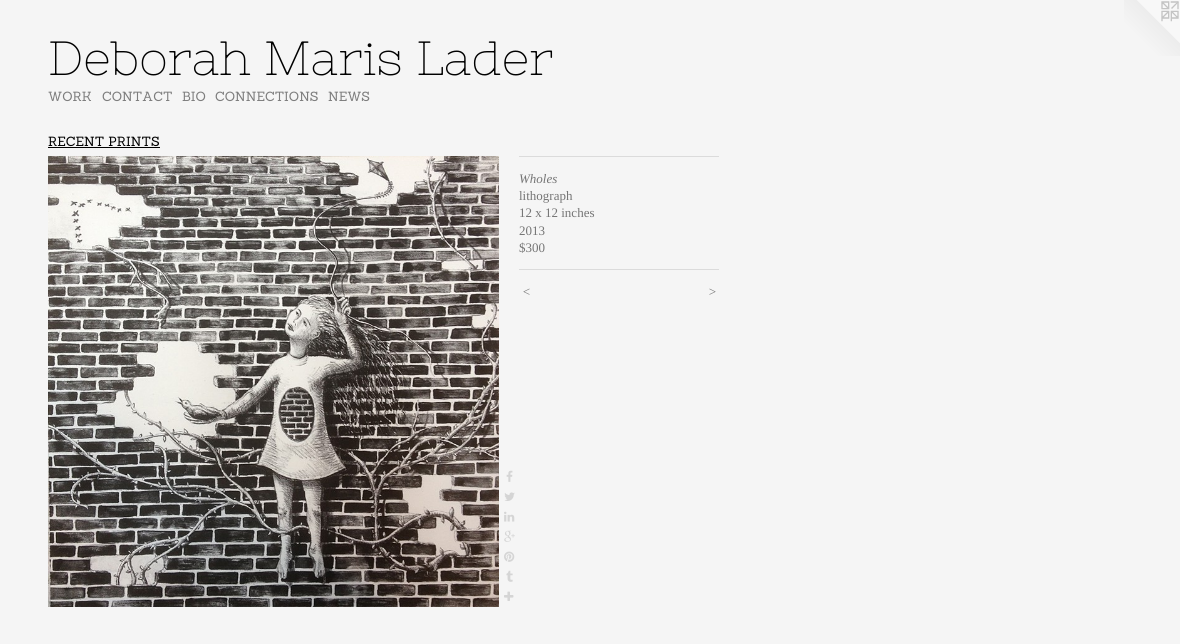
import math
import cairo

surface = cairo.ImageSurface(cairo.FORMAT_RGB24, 1180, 644)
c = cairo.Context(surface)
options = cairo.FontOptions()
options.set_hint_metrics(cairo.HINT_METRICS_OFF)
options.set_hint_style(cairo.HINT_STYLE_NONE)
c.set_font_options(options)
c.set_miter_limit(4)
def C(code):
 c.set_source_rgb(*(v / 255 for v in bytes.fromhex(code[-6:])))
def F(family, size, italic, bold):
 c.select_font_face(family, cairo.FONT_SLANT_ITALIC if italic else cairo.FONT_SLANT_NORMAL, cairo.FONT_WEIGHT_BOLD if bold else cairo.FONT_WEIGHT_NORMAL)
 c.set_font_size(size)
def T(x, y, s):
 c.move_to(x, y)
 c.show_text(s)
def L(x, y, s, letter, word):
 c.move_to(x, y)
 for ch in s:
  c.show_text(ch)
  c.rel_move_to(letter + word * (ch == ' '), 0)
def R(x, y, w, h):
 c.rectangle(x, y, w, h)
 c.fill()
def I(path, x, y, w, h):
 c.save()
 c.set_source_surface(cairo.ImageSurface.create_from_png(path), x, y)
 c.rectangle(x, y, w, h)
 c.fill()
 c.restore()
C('f5f5f5')
c.paint()
F('Nixie One',48,0,0)
C('000000')
T(48,75,'Deborah Maris Lader')
I('1.png',1124,0,56,56)
F('Sanchez',13,0,0)
C('7d7d7d')
T(48,101,'WORK')
T(102,101,'CONTACT')
T(182,101,'BIO')
T(215,101,'CONNECTIONS')
T(328,101,'NEWS')
C('000000')
T(48,146,'RECENT PRINTS')
R(48,147,112,1)
I('2.png',48,156,451,451)
I('3.png',506,470,7,12)
I('4.png',504,492,11,9)
I('5.png',504,511,11,11)
I('6.png',504,530,11,12)
I('7.png',504,551,11,11)
I('8.png',506,570,7,12)
I('9.png',504,591,10,10)
C('dbdbdb')
R(519,156,200,1)
F('Liberation Serif',13,1,0)
C('757575')
T(519,183,'Wholes')
F('Liberation Serif',13,0,0)
T(519,200,'lithograph')
T(519,217,'12 x 12 inches')
T(519,235,'2013')
T(519,252,'$300')
C('dbdbdb')
R(519,269,200,1)
F('Liberation Serif',13,1,0)
C('757575')
L(522,296,'<',1,0)
L(708,296,'>',1,0)
surface.write_to_png('o.png')
